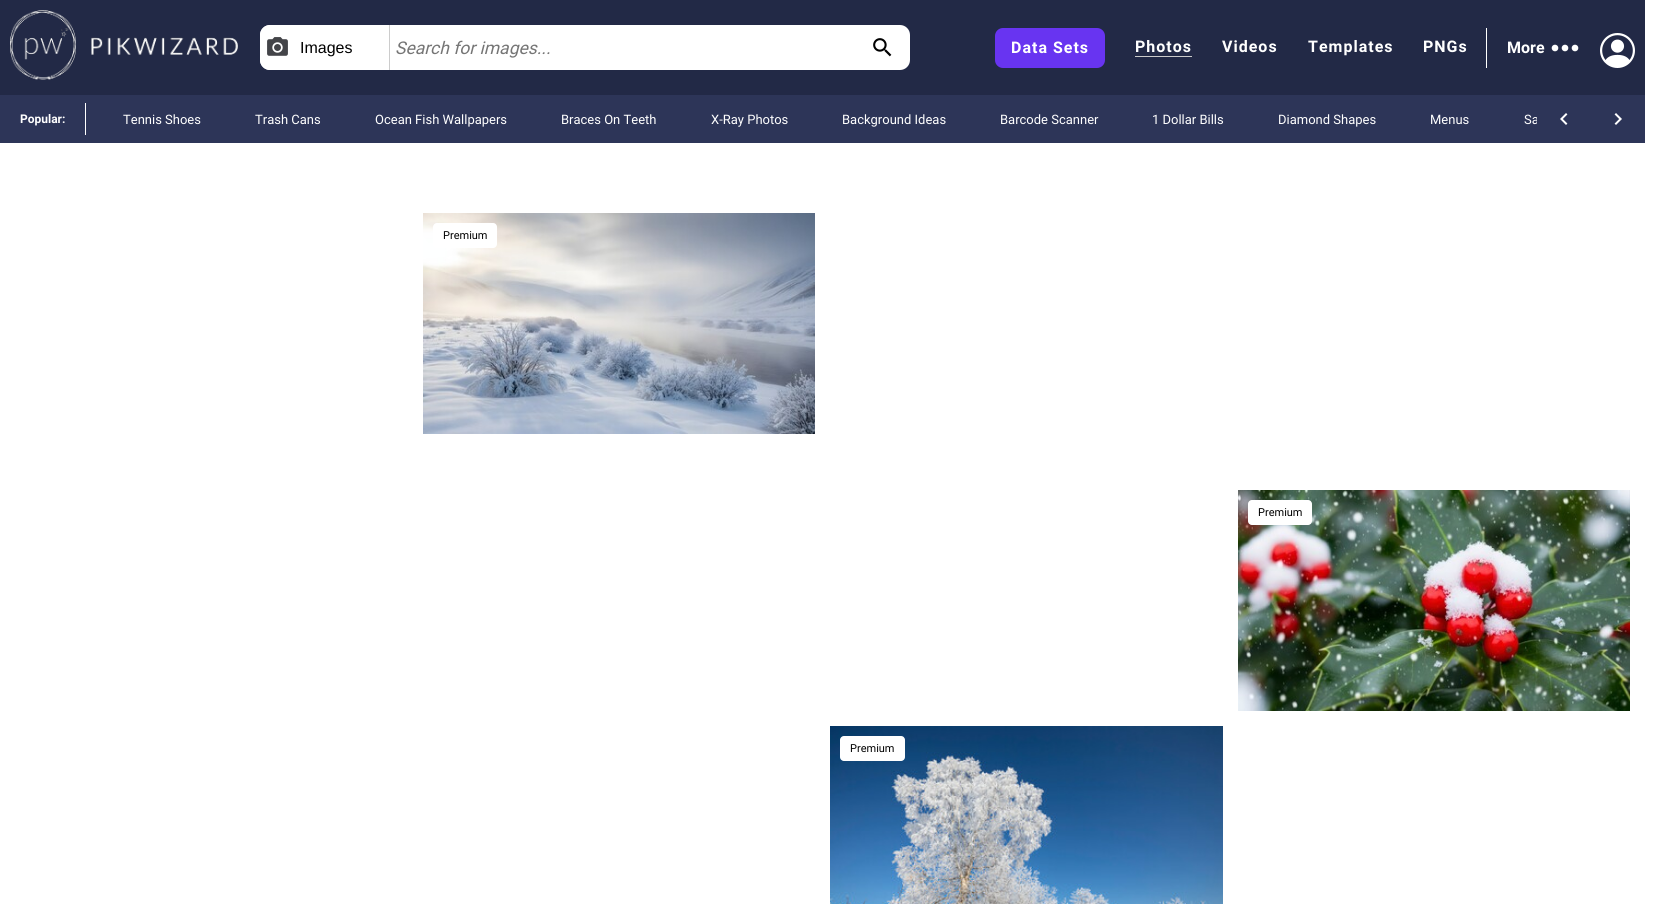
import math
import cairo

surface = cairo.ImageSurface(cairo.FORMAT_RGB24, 1660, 904)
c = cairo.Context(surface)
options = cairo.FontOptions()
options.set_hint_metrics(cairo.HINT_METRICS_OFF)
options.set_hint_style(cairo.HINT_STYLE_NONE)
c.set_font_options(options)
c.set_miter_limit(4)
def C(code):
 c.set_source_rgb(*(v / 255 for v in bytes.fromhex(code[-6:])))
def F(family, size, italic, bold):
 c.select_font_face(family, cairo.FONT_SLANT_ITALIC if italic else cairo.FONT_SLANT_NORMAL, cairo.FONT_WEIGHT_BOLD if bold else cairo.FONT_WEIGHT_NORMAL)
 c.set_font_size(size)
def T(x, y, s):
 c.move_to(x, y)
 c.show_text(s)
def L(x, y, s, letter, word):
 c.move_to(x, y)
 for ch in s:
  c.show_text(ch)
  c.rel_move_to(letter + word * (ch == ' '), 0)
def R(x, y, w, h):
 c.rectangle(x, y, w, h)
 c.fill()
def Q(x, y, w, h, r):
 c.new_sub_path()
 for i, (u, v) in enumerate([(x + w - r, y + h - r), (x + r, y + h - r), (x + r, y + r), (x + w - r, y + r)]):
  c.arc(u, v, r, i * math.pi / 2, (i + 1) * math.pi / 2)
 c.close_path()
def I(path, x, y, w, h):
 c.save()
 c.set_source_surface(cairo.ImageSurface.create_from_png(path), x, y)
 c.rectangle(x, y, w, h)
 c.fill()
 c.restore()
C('ffffff')
c.paint()
C('222946')
R(0,0,1645,95)
I('1.png',10,10,228,70)
C('ffffff')
Q(260,25,650,45,10)
c.fill()
c.new_path()
c.move_to(270,25)
c.line_to(390,25)
c.line_to(390,70)
c.line_to(270,70)
c.curve_to(264.5,70,260,65.5,260,60)
c.line_to(260,35)
c.curve_to(260,29.5,264.5,25,270,25)
c.close_path()
c.fill()
C('cccccc')
R(389,25,1,45)
I('2.png',267,37,21,19)
F('Liberation Sans',16,0,0)
C('000000')
T(300,53,'Images')
F('Roboto',17.5,1,0)
C('757575')
T(395,54,'Search for images...')
I('3.png',873,38,19,19)
C('6834f1')
Q(995,28,110,40,8)
c.fill()
F('Roboto',16,0,1)
C('ffffff')
L(1011,53,'Data Sets',1,0)
C('cbcbcb')
R(1135,56,57,1)
C('ffffff')
L(1135,52,'Photos',1,0)
L(1222,52,'Videos',1,0)
L(1308,52,'Templates',1,0)
L(1423,52,'PNGs',1,0)
R(1486,28,1,40)
T(1507,53,'More')
I('4.png',1551,44,28,8)
I('5.png',1600,33,35,35)
C('2d3558')
R(0,95,1645,48)
C('ffffff')
R(85,103,1,32)
F('Roboto',12,0,1)
T(20,123,'Popular:')
F('Roboto',13,0,0)
T(123,124,'Tennis Shoes')
T(255,124,'Trash Cans')
T(375,124,'Ocean Fish Wallpapers')
T(561,124,'Braces On Teeth')
T(711,124,'X-Ray Photos')
T(842,124,'Background Ideas')
T(1000,124,'Barcode Scanner')
T(1152,124,'1 Dollar Bills')
T(1278,124,'Diamond Shapes')
T(1430,124,'Menus')
c.save()
c.rectangle(96,95,1441,48)
c.clip()
T(1524,124,'Sa')
c.restore()
I('6.png',1560,113,8,12)
I('7.png',1614,113,8,12)
I('8.png',423,213,392,221)
Q(433,223,64,25,4)
c.fill()
F('Roboto',11,0,0)
C('000000')
T(443,239,'Premium')
I('9.png',1238,490,392,221)
C('ffffff')
Q(1248,500,64,25,4)
c.fill()
C('000000')
T(1258,516,'Premium')
I('10.png',830,726,393,178)
C('ffffff')
Q(840,736,65,25,4)
c.fill()
C('000000')
T(850,752,'Premium')
surface.write_to_png('o.png')
